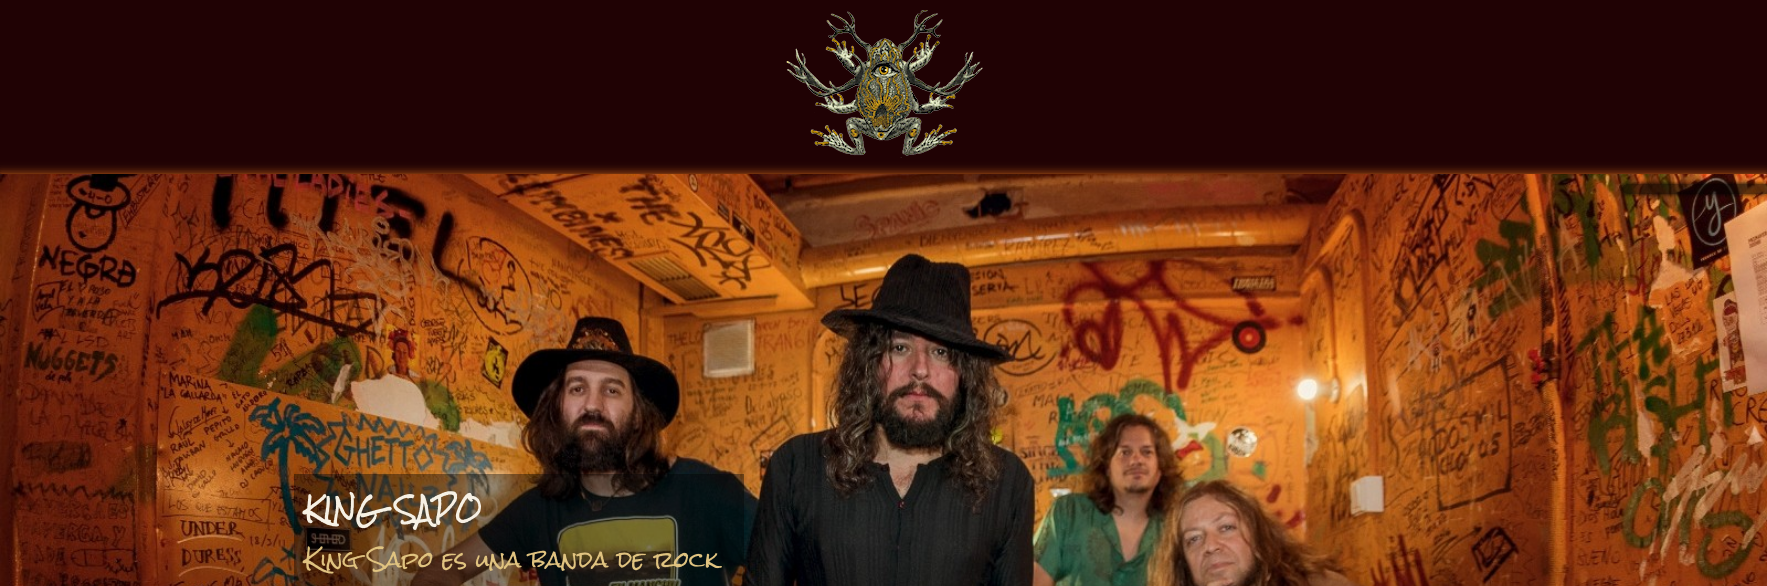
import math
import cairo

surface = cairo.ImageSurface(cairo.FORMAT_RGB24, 1767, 586)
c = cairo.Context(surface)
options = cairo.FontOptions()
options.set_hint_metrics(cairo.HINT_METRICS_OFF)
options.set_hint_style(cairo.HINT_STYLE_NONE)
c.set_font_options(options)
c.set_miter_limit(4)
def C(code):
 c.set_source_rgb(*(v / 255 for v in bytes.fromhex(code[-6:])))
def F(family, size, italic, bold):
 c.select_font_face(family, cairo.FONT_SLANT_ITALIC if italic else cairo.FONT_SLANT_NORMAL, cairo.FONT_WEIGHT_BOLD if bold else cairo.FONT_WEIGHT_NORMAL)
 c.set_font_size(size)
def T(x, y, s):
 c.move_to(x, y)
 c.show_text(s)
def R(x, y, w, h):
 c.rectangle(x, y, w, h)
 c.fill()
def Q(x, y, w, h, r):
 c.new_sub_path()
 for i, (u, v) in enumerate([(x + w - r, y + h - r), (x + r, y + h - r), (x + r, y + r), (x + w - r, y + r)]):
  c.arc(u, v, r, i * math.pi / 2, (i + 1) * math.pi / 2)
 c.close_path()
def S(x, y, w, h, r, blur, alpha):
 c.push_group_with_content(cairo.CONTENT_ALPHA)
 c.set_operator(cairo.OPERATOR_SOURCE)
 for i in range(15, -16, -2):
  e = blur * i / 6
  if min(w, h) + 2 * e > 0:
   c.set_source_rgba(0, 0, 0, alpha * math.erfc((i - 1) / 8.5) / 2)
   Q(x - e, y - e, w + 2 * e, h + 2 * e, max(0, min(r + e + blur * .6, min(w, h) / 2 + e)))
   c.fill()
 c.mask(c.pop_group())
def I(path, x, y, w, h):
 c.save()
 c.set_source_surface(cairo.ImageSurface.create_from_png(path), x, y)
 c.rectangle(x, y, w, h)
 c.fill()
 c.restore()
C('200204')
c.paint()
I('1.png',786,10,197,148)
C('c96316')
S(0,174,1767,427,0,5,1)
I('2.png',0,174,1767,412)
c.save()
c.set_fill_rule(cairo.FILL_RULE_EVEN_ODD)
c.new_path()
c.move_to(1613,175)
c.line_to(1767,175)
c.line_to(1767,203)
c.line_to(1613,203)
c.close_path()
c.move_to(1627,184)
c.line_to(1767,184)
c.line_to(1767,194)
c.line_to(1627,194)
c.curve_to(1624,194,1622,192,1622,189)
c.curve_to(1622,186,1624,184,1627,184)
c.close_path()
c.clip()
C('000000')
S(1622,184,145,10,5,2.5,1)
c.restore()
c.set_source_rgba(0,0,0,0.6)
c.new_path()
c.move_to(1627,184)
c.line_to(1767,184)
c.line_to(1767,194)
c.line_to(1627,194)
c.curve_to(1624,194,1622,192,1622,189)
c.curve_to(1622,186,1624,184,1627,184)
c.close_path()
c.fill()
c.set_source_rgba(0,0,0,0.4)
R(294,474,450,112)
F('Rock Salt',25,0,1)
C('f7f1e5')
T(304,520,'KING')
T(395,520,'SAPO')
F('Rock Salt',21.6,0,0)
C('e0c380')
T(304,568,'King Sapo es una banda de rock')
surface.write_to_png('o.png')
